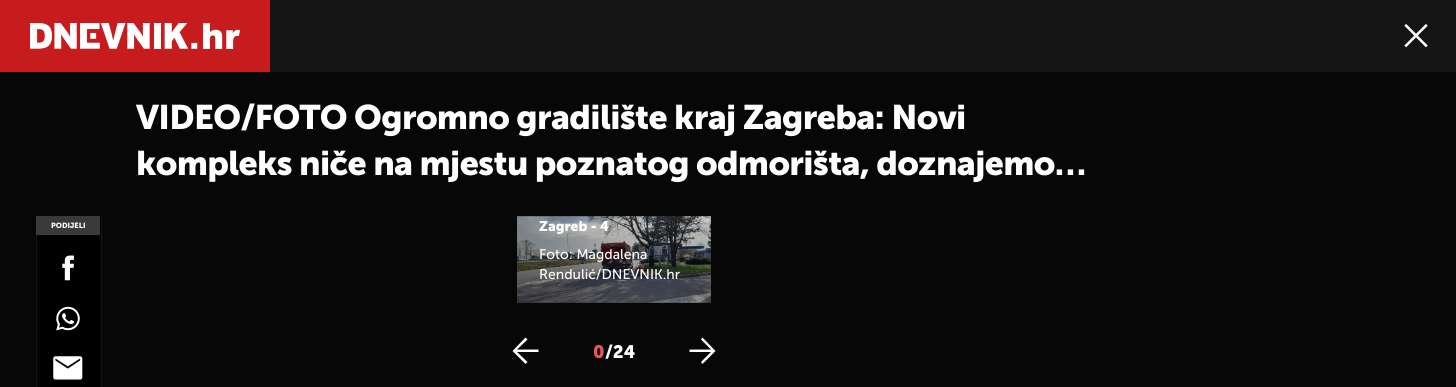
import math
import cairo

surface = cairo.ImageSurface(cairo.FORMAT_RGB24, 1456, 387)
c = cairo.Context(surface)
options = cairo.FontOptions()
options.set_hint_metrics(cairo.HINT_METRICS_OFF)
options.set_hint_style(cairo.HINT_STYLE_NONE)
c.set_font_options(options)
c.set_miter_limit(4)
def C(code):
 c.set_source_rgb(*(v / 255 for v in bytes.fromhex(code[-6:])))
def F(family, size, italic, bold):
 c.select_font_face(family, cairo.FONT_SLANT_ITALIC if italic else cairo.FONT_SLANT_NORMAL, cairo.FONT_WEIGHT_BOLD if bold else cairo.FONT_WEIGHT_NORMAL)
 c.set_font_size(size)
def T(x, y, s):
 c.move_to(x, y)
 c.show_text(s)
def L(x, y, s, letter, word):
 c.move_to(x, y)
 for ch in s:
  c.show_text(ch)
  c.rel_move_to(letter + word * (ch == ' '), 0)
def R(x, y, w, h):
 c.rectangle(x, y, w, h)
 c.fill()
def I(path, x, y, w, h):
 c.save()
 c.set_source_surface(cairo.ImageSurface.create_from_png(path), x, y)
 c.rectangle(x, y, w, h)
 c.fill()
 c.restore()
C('070707')
c.paint()
C('141414')
R(270,0,1186,72)
C('c71c1d')
R(0,0,270,72)
I('1.png',30,23,210,26)
I('2.png',1404,24,24,24)
F('Museo Sans',34,0,0)
C('ffffff')
L(136,129,'VIDEO/FOTO Ogromno gradilište kraj Zagreba: Novi',-.68,0)
L(136,175,'kompleks niče na mjestu poznatog odmorišta, doznajemo…',-.68,0)
C('000000')
R(37,219,64,168)
C('141414')
c.new_path()
c.move_to(36,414)
c.line_to(36,218)
c.line_to(37,219)
c.line_to(37,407)
c.close_path()
c.fill()
C('3a3a3a')
R(36,216,64,19)
C('141414')
R(100,218,2,1)
c.new_path()
c.move_to(102,218)
c.line_to(102,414)
c.line_to(101,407)
c.line_to(101,219)
c.close_path()
c.fill()
F('Museo Sans',7.5,0,0)
C('ffffff')
T(51,228,'PODIJELI')
I('3.png',62,255,12,26)
I('4.png',56,306,24,25)
I('5.png',53,356,30,24)
I('6.png',517,216,194,87)
gradient = cairo.LinearGradient(614,303,614,136)
gradient.add_color_stop_rgba(0,0.078,0.078,0.078,.4)
gradient.add_color_stop_rgba(1,0.078,0.078,0.078,0)
c.set_source(gradient)
R(517,216,194,87)
F('Museo Sans',14,0,0)
C('ffffff')
T(539,231,'Zagreb - 4')
F('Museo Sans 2',14,0,0)
T(539,259,'Foto: Magdalena')
T(539,279,'Rendulić/DNEVNIK.hr')
c.new_path()
c.move_to(525.5,364)
c.line_to(527.5,362)
c.line_to(517,352)
c.line_to(538.5,352)
c.line_to(538.5,349.5)
c.line_to(517,349.5)
c.line_to(527.5,339.5)
c.line_to(525.5,337.5)
c.line_to(512.5,351)
c.close_path()
c.fill()
F('Museo Sans',18,0,0)
C('e95858')
T(593,358,'0')
C('ffffff')
T(605,358,'/24')
c.new_path()
c.move_to(702.5,364)
c.line_to(701,362)
c.line_to(711,352)
c.line_to(689.5,352)
c.line_to(689.5,349.5)
c.line_to(711,349.5)
c.line_to(701,339.5)
c.line_to(702.5,337.5)
c.line_to(715.5,351)
c.close_path()
c.fill()
surface.write_to_png('o.png')
